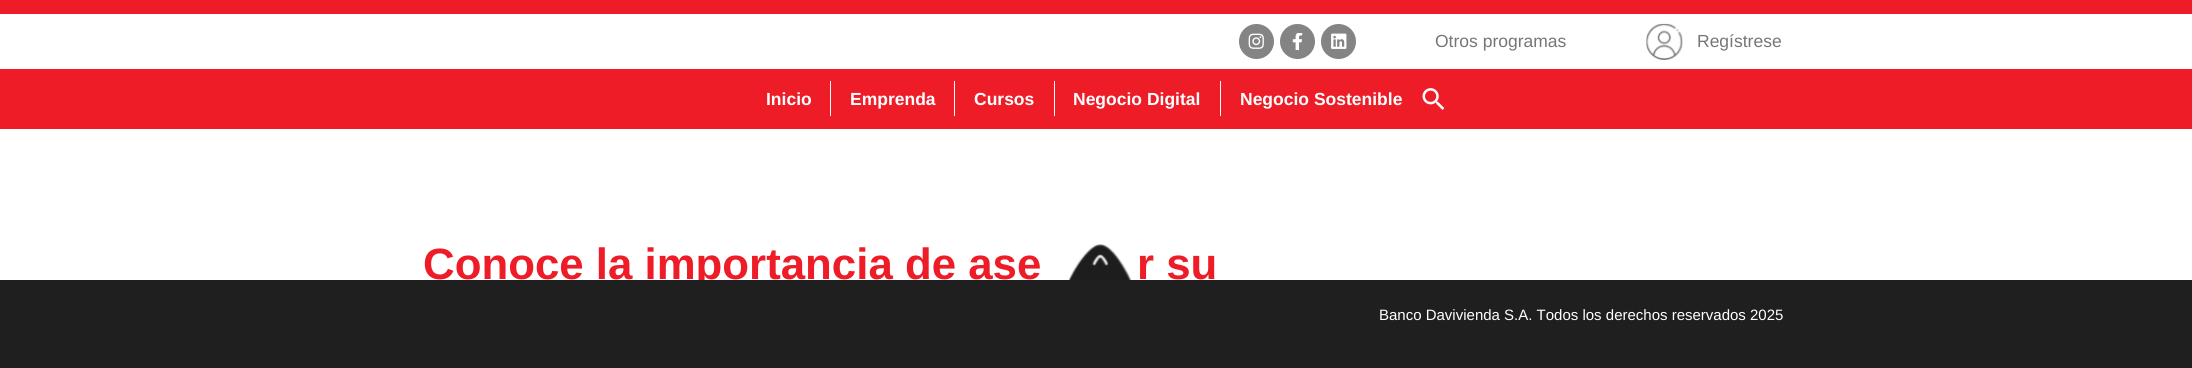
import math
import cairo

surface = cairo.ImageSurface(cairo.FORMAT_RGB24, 2192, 368)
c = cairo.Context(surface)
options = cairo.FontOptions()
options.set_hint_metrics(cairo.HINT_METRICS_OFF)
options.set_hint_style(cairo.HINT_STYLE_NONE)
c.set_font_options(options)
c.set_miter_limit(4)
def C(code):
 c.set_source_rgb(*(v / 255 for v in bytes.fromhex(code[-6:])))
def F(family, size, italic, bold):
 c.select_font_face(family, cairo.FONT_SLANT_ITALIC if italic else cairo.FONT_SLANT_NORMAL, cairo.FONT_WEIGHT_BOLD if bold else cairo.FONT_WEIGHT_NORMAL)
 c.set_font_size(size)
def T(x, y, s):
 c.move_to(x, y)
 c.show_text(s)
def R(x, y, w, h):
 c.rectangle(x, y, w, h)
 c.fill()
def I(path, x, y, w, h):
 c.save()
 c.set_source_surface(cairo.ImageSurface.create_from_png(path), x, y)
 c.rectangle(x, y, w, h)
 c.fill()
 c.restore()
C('ffffff')
c.paint()
C('ed1c27')
R(0,0,2192,14)
C('858484')
c.arc(1256.5,41.5,17.5,0,2 * math.pi)
c.fill()
I('1.png',1248,33,16,16)
c.arc(1297.5,41.5,17.5,0,2 * math.pi)
c.fill()
I('2.png',1292,33,11,17)
c.arc(1338.5,41.5,17.5,0,2 * math.pi)
c.fill()
I('3.png',1331,33,16,16)
F('Liberation Sans',17.5,0,0)
C('767676')
T(1435,47,'Otros programas')
I('4.png',1646,23,37,37)
T(1697,47,'Regístrese')
C('ed1c27')
R(0,69,2192,60)
C('ffffff')
R(830,81,1,35)
F('Liberation Sans',17.5,0,1)
T(766,105,'Inicio')
R(954,81,1,35)
T(850,105,'Emprenda')
R(1054,81,1,35)
T(974,105,'Cursos')
R(1220,81,1,35)
T(1073,105,'Negocio Digital')
T(1240,105,'Negocio Sostenible')
I('5.png',1422,88,23,22)
F('Liberation Sans',43.8,0,1)
C('ed1c27')
T(423,279,'Conoce la importancia de ase')
T(1137,279,'r su')
C('1f1f1f')
R(0,280,2192,88)
I('6.png',1068,244,64,36)
F('Liberation Sans',15,0,0)
C('ffffff')
T(1379,320,'Banco Davivienda S.A. Todos los derechos reservados 2025')
surface.write_to_png('o.png')
